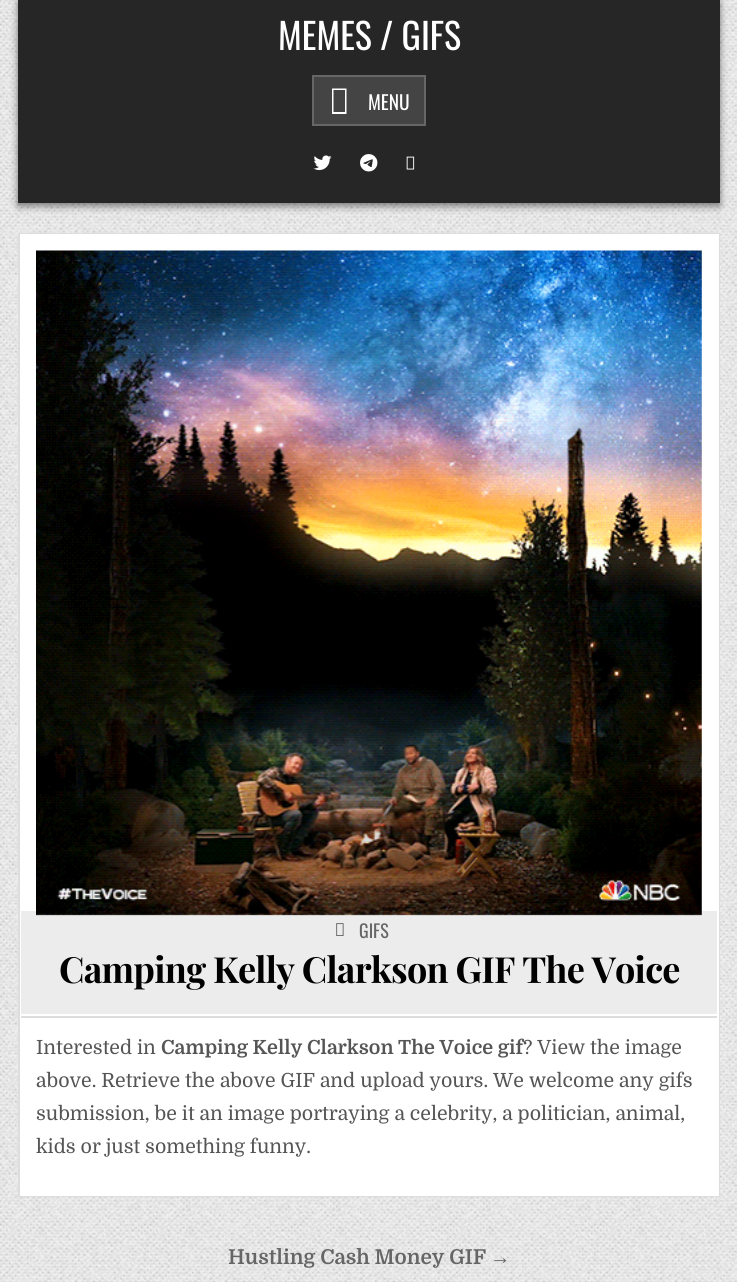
import math
import cairo

surface = cairo.ImageSurface(cairo.FORMAT_RGB24, 737, 1282)
c = cairo.Context(surface)
options = cairo.FontOptions()
options.set_hint_metrics(cairo.HINT_METRICS_OFF)
options.set_hint_style(cairo.HINT_STYLE_NONE)
c.set_font_options(options)
c.set_miter_limit(4)
def C(code):
 c.set_source_rgb(*(v / 255 for v in bytes.fromhex(code[-6:])))
def F(family, size, italic, bold):
 c.select_font_face(family, cairo.FONT_SLANT_ITALIC if italic else cairo.FONT_SLANT_NORMAL, cairo.FONT_WEIGHT_BOLD if bold else cairo.FONT_WEIGHT_NORMAL)
 c.set_font_size(size)
def T(x, y, s):
 c.move_to(x, y)
 c.show_text(s)
def L(x, y, s, letter, word):
 c.move_to(x, y)
 for ch in s:
  c.show_text(ch)
  c.rel_move_to(letter + word * (ch == ' '), 0)
def R(x, y, w, h):
 c.rectangle(x, y, w, h)
 c.fill()
def Q(x, y, w, h, r):
 c.new_sub_path()
 for i, (u, v) in enumerate([(x + w - r, y + h - r), (x + r, y + h - r), (x + r, y + r), (x + w - r, y + r)]):
  c.arc(u, v, r, i * math.pi / 2, (i + 1) * math.pi / 2)
 c.close_path()
def S(x, y, w, h, r, blur, alpha):
 c.push_group_with_content(cairo.CONTENT_ALPHA)
 c.set_operator(cairo.OPERATOR_SOURCE)
 for i in range(15, -16, -2):
  e = blur * i / 6
  if min(w, h) + 2 * e > 0:
   c.set_source_rgba(0, 0, 0, alpha * math.erfc((i - 1) / 8.5) / 2)
   Q(x - e, y - e, w + 2 * e, h + 2 * e, max(0, min(r + e + blur * .6, min(w, h) / 2 + e)))
   c.fill()
 c.mask(c.pop_group())
def I(path, x, y, w, h):
 c.save()
 c.set_source_surface(cairo.ImageSurface.create_from_png(path), x, y)
 c.rectangle(x, y, w, h)
 c.fill()
 c.restore()
C('ffffff')
c.paint()
I('1.png',0,0,737,1282)
C('000000')
S(18,3,702,203,0,4,.5)
C('262626')
R(18,0,702,203)
F('Oswald',36,0,0)
C('ffffff')
T(278,50,'MEMES / GIFS')
C('444444')
c.rectangle(313,76,112,49)
c.fill_preserve()
C('666666')
c.stroke()
C('ffffff')
c.new_path()
c.move_to(332,114)
c.line_to(332,88.5)
c.line_to(346.5,88.5)
c.line_to(346.5,114)
c.close_path()
c.move_to(333.5,112)
c.line_to(345,112)
c.line_to(345,90)
c.line_to(333.5,90)
c.close_path()
c.fill()
F('Oswald',19.5,0,0)
T(368,110,'MENU')
I('2.png',313,155,19,16)
I('3.png',360,154,18,18)
I('4.png',406,156,9,14)
R(22,236,695,958)
c.rectangle(19,234,700,962)
C('dddddd')
c.stroke()
c.rectangle(21,235,697,960)
C('ffffff')
c.stroke()
C('ececec')
R(21,911,696,103)
I('5.png',36,250,666,666)
C('dddddd')
R(21,1016,696,2)
I('6.png',336,923,8,13)
F('Oswald',18,0,0)
C('666666')
T(359,938,'GIFS')
F('Playfair Display',36,0,1)
C('000000')
L(59,983,'Camping Kelly Clarkson GIF The Voice',-.75,0)
F('Domine',19.5,0,0)
C('555555')
T(36,1054,'Interested in')
F('Domine',19.5,0,1)
T(161,1054,'Camping Kelly Clarkson The Voice gif')
F('Domine',19.5,0,0)
T(523,1054,'? View the image')
T(36,1087,'above. Retrieve the above GIF and upload yours. We welcome any gifs')
T(36,1120,'submission, be it an image portraying a celebrity, a politician, animal,')
T(36,1153,'kids or just something funny.')
F('Domine',20.5,0,1)
C('666666')
T(228,1264,'Hustling Cash Money GIF')
F('Liberation Sans',20.5,0,1)
T(490,1264,'→')
surface.write_to_png('o.png')
